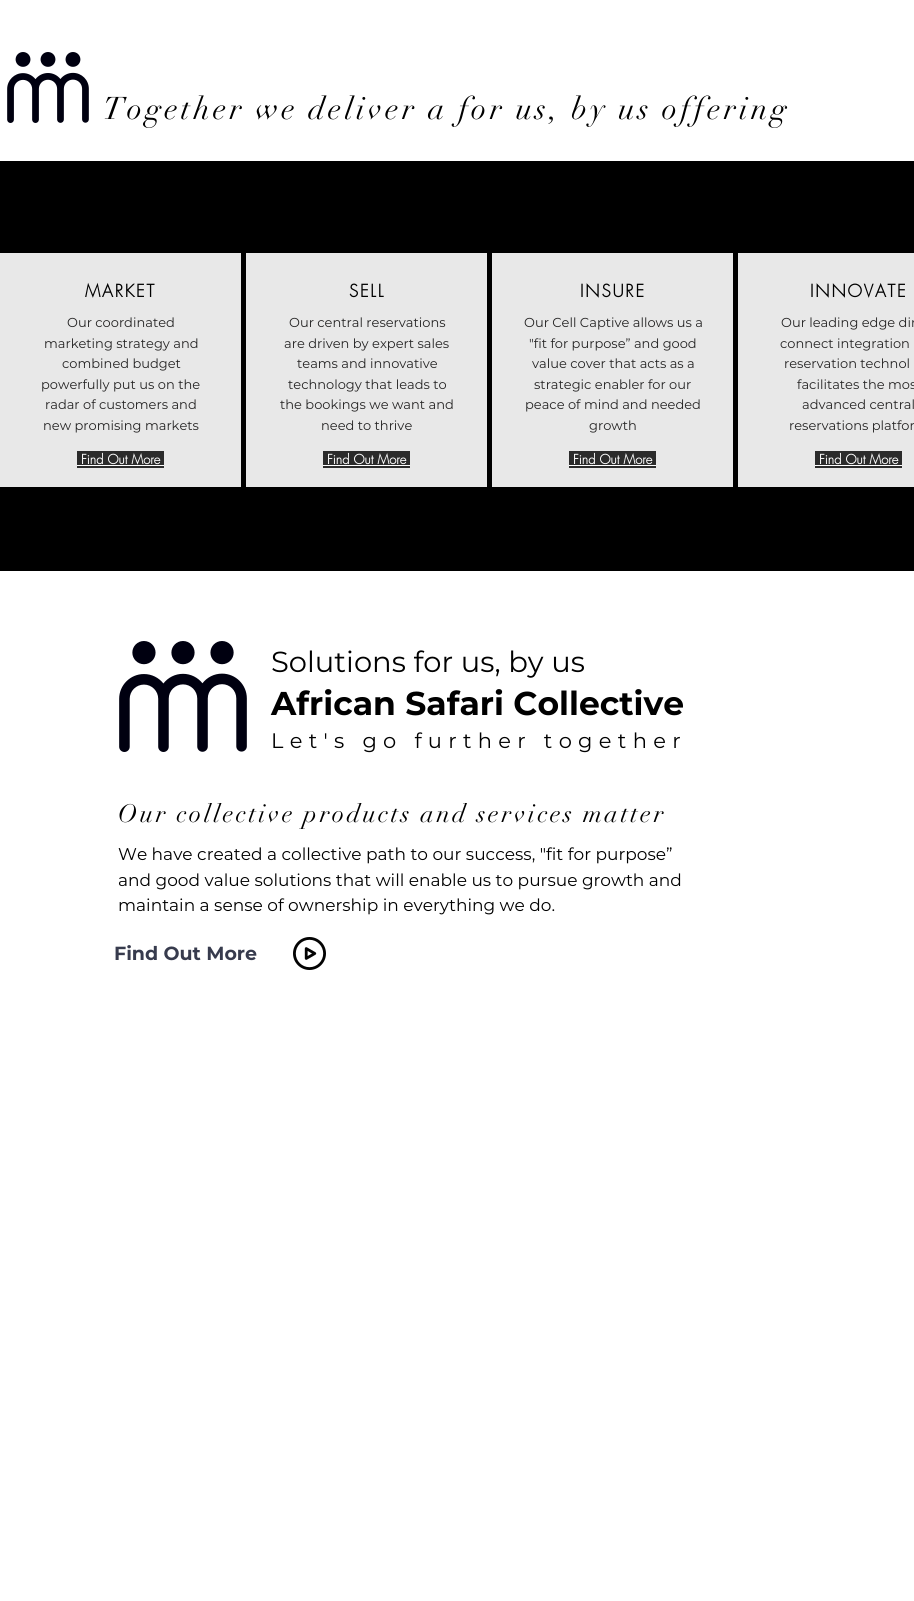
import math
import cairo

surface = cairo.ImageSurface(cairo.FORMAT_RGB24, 914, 1601)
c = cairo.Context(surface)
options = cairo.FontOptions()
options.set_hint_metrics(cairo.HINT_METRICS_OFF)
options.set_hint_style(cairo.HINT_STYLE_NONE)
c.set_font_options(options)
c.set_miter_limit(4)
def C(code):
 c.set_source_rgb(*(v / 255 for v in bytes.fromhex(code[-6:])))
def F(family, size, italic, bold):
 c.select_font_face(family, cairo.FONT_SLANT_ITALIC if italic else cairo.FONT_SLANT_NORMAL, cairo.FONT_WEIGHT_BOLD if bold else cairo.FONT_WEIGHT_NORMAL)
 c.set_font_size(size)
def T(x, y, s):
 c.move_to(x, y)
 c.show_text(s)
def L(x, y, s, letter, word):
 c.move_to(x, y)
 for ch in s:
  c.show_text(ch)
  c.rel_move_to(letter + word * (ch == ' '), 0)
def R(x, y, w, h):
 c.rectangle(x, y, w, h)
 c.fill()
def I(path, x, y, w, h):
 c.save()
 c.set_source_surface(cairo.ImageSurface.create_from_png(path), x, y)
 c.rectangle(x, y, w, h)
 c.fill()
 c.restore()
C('ffffff')
c.paint()
I('1.png',7,52,82,71)
F('didot',31,0,0)
C('000000')
L(103,119,'Together we deliver a for us, by us offering',3.1,0)
R(0,161,914,410)
C('e8e8e8')
R(0,253,241,234)
F('futura',17,0,1)
C('000000')
L(85,297,'MARKET',1.75,0)
F('Montserrat',13,0,0)
C('242323')
T(67,327,'Our coordinated')
T(44,348,'marketing strategy and')
T(62,368,'combined budget')
T(41,389,'powerfully put us on the')
T(45,409,'radar of customers and')
T(43,430,'new promising markets')
C('2b2b2b')
R(77,451,87,17)
F('futura',13,0,1)
C('ffffff')
T(81,464,'Find Out More')
R(77,465,87,1)
C('e8e8e8')
R(246,253,241,234)
F('futura',17,0,1)
C('000000')
L(349,297,'SELL',1.75,0)
F('Montserrat',13,0,0)
C('242323')
T(289,327,'Our central reservations')
T(284,348,'are driven by expert sales')
T(297,368,'teams and innovative')
T(288,389,'technology that leads to')
T(280,409,'the bookings we want and')
T(321,430,'need to thrive')
C('2b2b2b')
R(323,451,87,17)
F('futura',13,0,1)
C('ffffff')
T(327,464,'Find Out More')
R(323,465,87,1)
C('e8e8e8')
R(492,253,241,234)
F('futura',17,0,1)
C('000000')
L(580,297,'INSURE',1.75,0)
F('Montserrat',13,0,0)
C('242323')
T(524,327,'Our Cell Captive allows us a')
T(529,348,'"fit for purpose” and good')
T(532,368,'value cover that acts as a')
T(534,389,'strategic enabler for our')
T(525,409,'peace of mind and needed')
T(589,430,'growth')
C('2b2b2b')
R(569,451,87,17)
F('futura',13,0,1)
C('ffffff')
T(573,464,'Find Out More')
R(569,465,87,1)
C('e8e8e8')
R(738,253,176,234)
F('futura',17,0,1)
C('000000')
L(810,297,'INNOVATE',1.75,0)
F('Montserrat',13,0,0)
C('242323')
T(781,327,'Our leading edge dir')
T(780,348,'connect integration')
T(784,368,'reservation technol')
T(797,389,'facilitates the mos')
T(802,409,'advanced central')
T(789,430,'reservations platfor')
C('2b2b2b')
R(815,451,87,17)
F('futura',13,0,1)
C('ffffff')
T(819,464,'Find Out More')
R(815,465,87,1)
I('2.png',119,641,128,111)
F('Montserrat',29,0,0)
C('000000')
T(271,672,'Solutions for us, by us')
F('Montserrat',33,0,1)
T(271,715,'African Safari Collective')
F('Montserrat',21,0,0)
L(271,748,'Let\'s go further together',6.3,0)
F('didot',25,0,0)
L(118,822,'Our collective products and services matter',2.5,0)
F('Montserrat',17,0,0)
T(118,860,'We have created a collective path to our success, "fit for purpose”')
T(118,886,'and good value solutions that will enable us to pursue growth and')
T(118,911,'maintain a sense of ownership in everything we do.')
F('Montserrat',19,0,1)
C('373b4d')
T(114,960,'Find Out More')
I('3.png',293,937,33,33)
surface.write_to_png('o.png')
